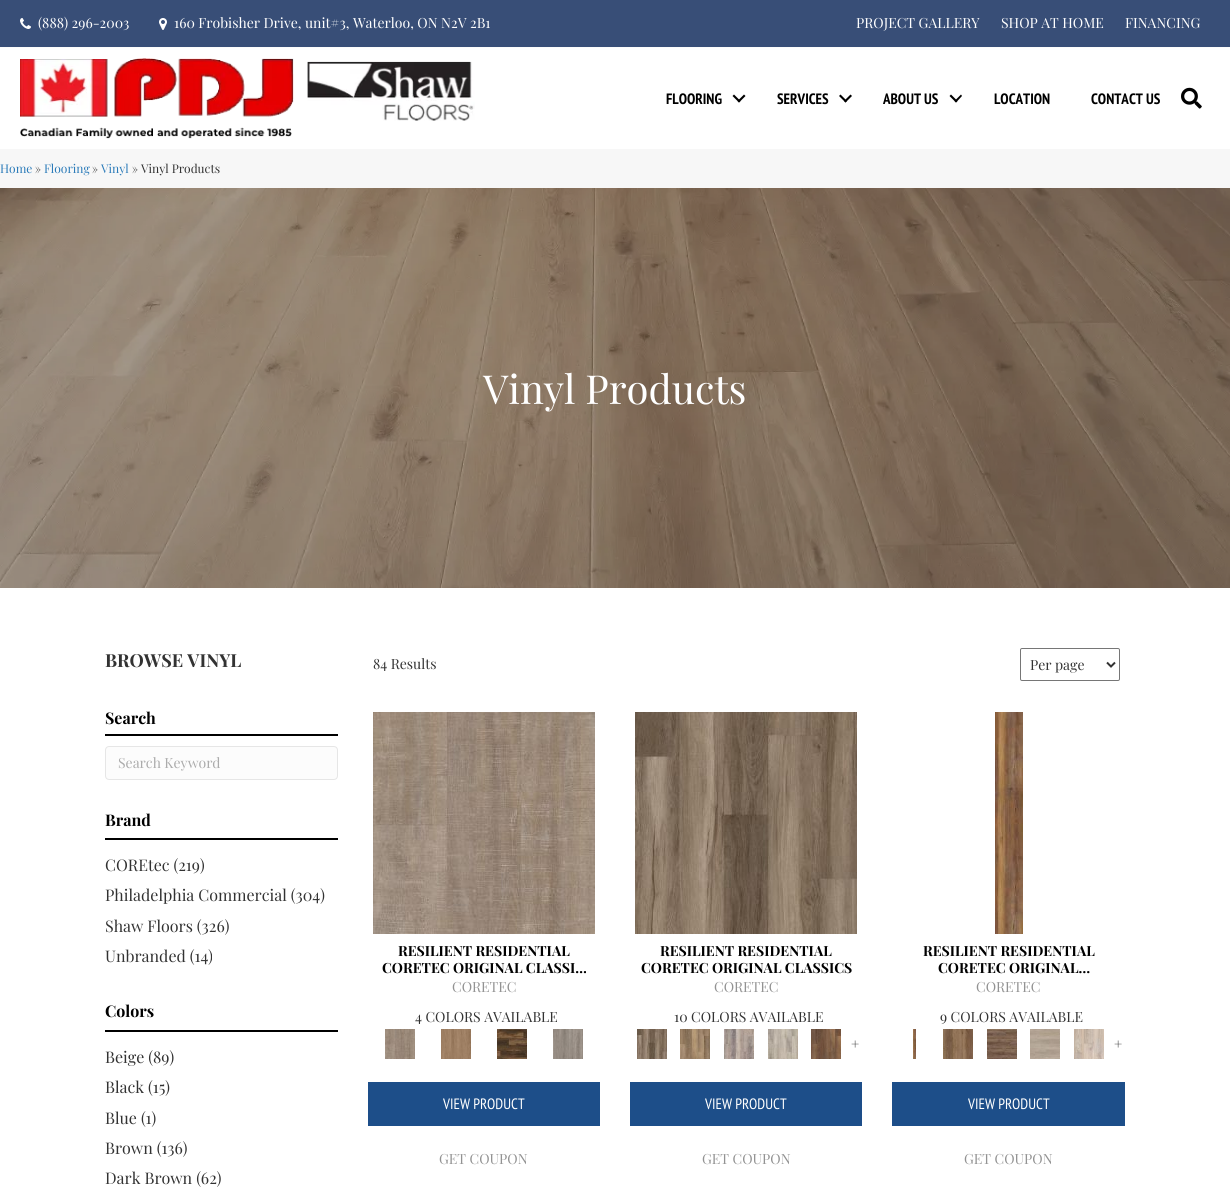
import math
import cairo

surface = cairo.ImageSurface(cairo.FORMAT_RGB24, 1230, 1194)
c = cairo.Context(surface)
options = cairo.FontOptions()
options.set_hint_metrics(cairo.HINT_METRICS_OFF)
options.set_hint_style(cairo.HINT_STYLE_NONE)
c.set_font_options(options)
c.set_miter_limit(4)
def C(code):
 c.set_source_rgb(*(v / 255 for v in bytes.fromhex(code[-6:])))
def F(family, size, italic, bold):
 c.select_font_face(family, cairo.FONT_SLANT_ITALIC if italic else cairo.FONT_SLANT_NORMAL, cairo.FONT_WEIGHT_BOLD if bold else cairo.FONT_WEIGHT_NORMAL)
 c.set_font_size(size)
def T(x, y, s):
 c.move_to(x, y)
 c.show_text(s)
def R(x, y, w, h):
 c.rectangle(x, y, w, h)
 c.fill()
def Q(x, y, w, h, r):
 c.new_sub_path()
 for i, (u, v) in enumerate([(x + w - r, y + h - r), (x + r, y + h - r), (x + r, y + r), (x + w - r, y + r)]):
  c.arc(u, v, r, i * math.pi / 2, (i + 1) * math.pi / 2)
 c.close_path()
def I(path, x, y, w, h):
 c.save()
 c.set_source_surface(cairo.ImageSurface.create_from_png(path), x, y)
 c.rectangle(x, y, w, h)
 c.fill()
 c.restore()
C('ffffff')
c.paint()
C('384e77')
R(0,0,1230,47)
C('fbfbfb')
R(0,47,1230,1)
I('1.png',20,18,11,11)
F('Playfair Display',14,0,0)
C('ffffff')
T(38,28,'(888) 296-2003')
I('2.png',159,18,8,12)
T(174,28,'160 Frobisher Drive, unit#3, Waterloo, ON N2V 2B1')
T(856,28,'PROJECT GALLERY')
T(1001,28,'SHOP AT HOME')
T(1125,28,'FINANCING')
I('3.png',20,58,455,81)
F('PT Sans Narrow',15,0,1)
C('000000')
T(666,104,'FLOORING')
c.new_path()
c.move_to(744,94.5)
c.line_to(745.5,96)
c.line_to(739,102.5)
c.line_to(737.5,101)
c.close_path()
c.fill()
c.new_path()
c.move_to(734,94.5)
c.line_to(740.5,101)
c.line_to(739,102.5)
c.line_to(732.5,96)
c.close_path()
c.fill()
T(777,104,'SERVICES')
c.new_path()
c.move_to(850.5,94.5)
c.line_to(852,96)
c.line_to(845.5,102.5)
c.line_to(844,101)
c.close_path()
c.fill()
c.new_path()
c.move_to(840.5,94.5)
c.line_to(847,101)
c.line_to(845.5,102.5)
c.line_to(839,96)
c.close_path()
c.fill()
T(883,104,'ABOUT US')
c.new_path()
c.move_to(961,94.5)
c.line_to(962,96)
c.line_to(956,102.5)
c.line_to(954.5,101)
c.close_path()
c.fill()
c.new_path()
c.move_to(951,94.5)
c.line_to(957.5,101)
c.line_to(956,102.5)
c.line_to(949.5,96)
c.close_path()
c.fill()
T(994,104,'LOCATION')
T(1091,104,'CONTACT US')
I('4.png',1181,87,21,22)
C('f7f7f7')
R(0,149,1230,39)
F('Playfair Display',12,0,0)
C('2b7bb9')
T(0,173,'Home')
C('323232')
T(35,173,'»')
C('2b7bb9')
T(44,173,'Flooring')
C('323232')
T(92,173,'»')
C('2b7bb9')
T(101,173,'Vinyl')
C('323232')
T(132,173,'» Vinyl Products')
I('5.png',0,188,1230,400)
F('Playfair Display',40,0,0)
C('ffffff')
T(483,404,'Vinyl Products')
F('Playfair Display',18,0,1)
C('323232')
T(105,667,'BROWSE VINYL')
F('Playfair Display',14,0,0)
T(373,669,'84 Results')
Q(1020.5,648.5,99,32,1.5)
C('767676')
c.set_line_width(1)
c.stroke()
c.new_path()
c.move_to(1107,662.5)
c.line_to(1111,666.5)
c.line_to(1115,662.5)
C('323232')
c.set_line_width(2)
c.stroke()
T(1030,670,'Per page')
C('000000')
R(105,734,233,2)
F('Playfair Display',16,0,1)
T(105,724,'Search')
C('fcfcfc')
Q(105.5,746.5,232,33,3.5)
c.fill_preserve()
C('e6e6e6')
c.set_line_width(1)
c.stroke()
F('Playfair Display',14,0,0)
C('ababab')
T(118,768,'Search Keyword')
C('000000')
R(105,838,233,2)
F('Playfair Display',16,0,1)
T(105,826,'Brand')
F('Playfair Display',16,0,0)
C('323232')
T(105,871,'COREtec (219)')
T(105,901,'Philadelphia Commercial (304)')
T(105,932,'Shaw Floors (326)')
T(105,962,'Unbranded (14)')
C('000000')
R(105,1030,233,2)
F('Playfair Display',16,0,1)
T(105,1017,'Colors')
F('Playfair Display',16,0,0)
C('323232')
T(105,1063,'Beige (89)')
T(105,1093,'Black (15)')
T(105,1124,'Blue (1)')
T(105,1154,'Brown (136)')
T(105,1184,'Dark Brown (62)')
I('6.png',373,712,222,222)
F('Playfair Display',14,0,1)
C('000000')
T(398,956,'RESILIENT RESIDENTIAL')
T(382,973,'CORETEC ORIGINAL CLASSI…')
F('Playfair Display',14,0,0)
C('929292')
T(452,992,'CORETEC')
C('323232')
T(415,1022,'4 COLORS AVAILABLE')
I('7.png',385,1029,30,30)
I('8.png',441,1029,30,30)
I('9.png',497,1029,30,30)
I('10.png',553,1029,30,30)
C('1d4e89')
R(368,1082,232,44)
F('PT Sans Narrow',15,0,0)
C('ffffff')
T(443,1109,'VIEW PRODUCT')
F('Playfair Display',14,0,0)
C('929292')
T(439,1164,'GET COUPON')
I('11.png',635,712,222,222)
F('Playfair Display',14,0,1)
C('000000')
T(660,956,'RESILIENT RESIDENTIAL')
T(641,973,'CORETEC ORIGINAL CLASSICS')
F('Playfair Display',14,0,0)
C('929292')
T(714,992,'CORETEC')
C('323232')
T(674,1022,'10 COLORS AVAILABLE')
I('12.png',637,1029,30,30)
I('13.png',680,1029,30,30)
I('14.png',724,1029,30,30)
I('15.png',768,1029,30,30)
I('16.png',811,1029,30,30)
T(851,1049,'+')
C('1d4e89')
R(630,1082,232,44)
F('PT Sans Narrow',15,0,0)
C('ffffff')
T(705,1109,'VIEW PRODUCT')
F('Playfair Display',14,0,0)
C('929292')
T(702,1164,'GET COUPON')
I('17.png',995,712,28,222)
F('Playfair Display',14,0,1)
C('000000')
T(923,956,'RESILIENT RESIDENTIAL')
T(938,973,'CORETEC ORIGINAL…')
F('Playfair Display',14,0,0)
C('929292')
T(976,992,'CORETEC')
C('323232')
T(940,1022,'9 COLORS AVAILABLE')
I('18.png',913,1029,3,30)
I('19.png',943,1029,30,30)
I('20.png',987,1029,30,30)
I('21.png',1030,1029,30,30)
I('22.png',1074,1029,30,30)
T(1114,1049,'+')
C('1d4e89')
R(892,1082,233,44)
F('PT Sans Narrow',15,0,0)
C('ffffff')
T(968,1109,'VIEW PRODUCT')
F('Playfair Display',14,0,0)
C('929292')
T(964,1164,'GET COUPON')
surface.write_to_png('o.png')
